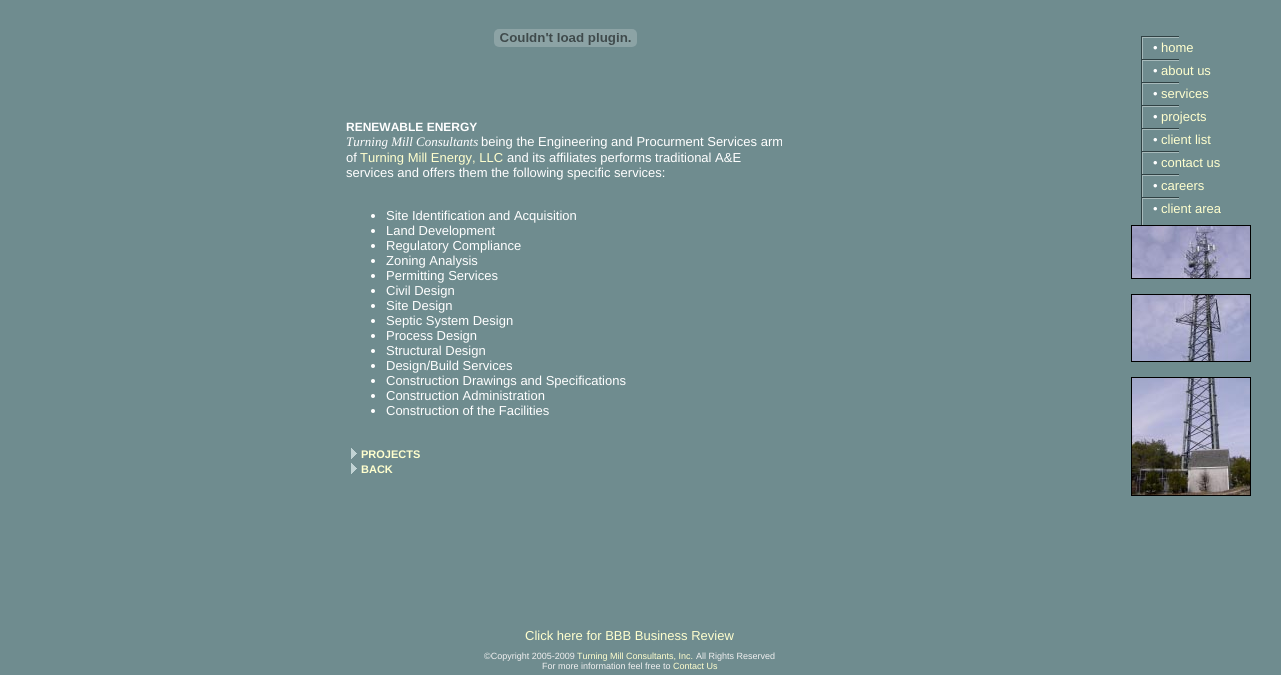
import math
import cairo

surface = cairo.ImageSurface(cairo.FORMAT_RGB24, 1281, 675)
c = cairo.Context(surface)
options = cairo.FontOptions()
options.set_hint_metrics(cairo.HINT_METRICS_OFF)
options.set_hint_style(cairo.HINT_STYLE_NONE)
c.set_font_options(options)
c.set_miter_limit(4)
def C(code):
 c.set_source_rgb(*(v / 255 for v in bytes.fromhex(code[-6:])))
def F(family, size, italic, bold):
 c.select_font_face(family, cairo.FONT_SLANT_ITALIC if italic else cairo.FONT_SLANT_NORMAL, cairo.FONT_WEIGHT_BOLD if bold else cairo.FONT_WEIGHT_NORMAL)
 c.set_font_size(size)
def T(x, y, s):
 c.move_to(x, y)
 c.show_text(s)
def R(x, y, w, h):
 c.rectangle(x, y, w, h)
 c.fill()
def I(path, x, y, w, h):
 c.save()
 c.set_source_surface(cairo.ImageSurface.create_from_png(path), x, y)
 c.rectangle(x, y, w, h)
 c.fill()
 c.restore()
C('6f8c8f')
c.paint()
I('1.png',494,29,143,18)
F('Liberation Sans',12,0,1)
C('ffffff')
T(346,131,'RENEWABLE ENERGY')
F('Liberation Serif',13,1,0)
T(346,146,'Turning Mill Consultants')
F('Liberation Sans',13,0,0)
T(481,146,'being the Engineering and Procurment Services arm')
T(346,162,'of')
C('ffffce')
T(360,162,'Turning Mill Energy, LLC')
C('ffffff')
T(507,162,'and its affiliates performs traditional A&E')
T(346,177,'services and offers them the following specific services:')
c.new_path()
c.arc(373,216,2,0,2 * math.pi)
c.fill()
T(386,220,'Site Identification and Acquisition')
c.new_path()
c.arc(373,231,2,0,2 * math.pi)
c.fill()
T(386,235,'Land Development')
c.new_path()
c.arc(373,246,2,0,2 * math.pi)
c.fill()
T(386,250,'Regulatory Compliance')
c.new_path()
c.arc(373,261,2,0,2 * math.pi)
c.fill()
T(386,265,'Zoning Analysis')
c.new_path()
c.arc(373,276,2,0,2 * math.pi)
c.fill()
T(386,280,'Permitting Services')
c.new_path()
c.arc(373,291,2,0,2 * math.pi)
c.fill()
T(386,295,'Civil Design')
c.new_path()
c.arc(373,306,2,0,2 * math.pi)
c.fill()
T(386,310,'Site Design')
c.new_path()
c.arc(373,321,2,0,2 * math.pi)
c.fill()
T(386,325,'Septic System Design')
c.new_path()
c.arc(373,336,2,0,2 * math.pi)
c.fill()
T(386,340,'Process Design')
c.new_path()
c.arc(373,351,2,0,2 * math.pi)
c.fill()
T(386,355,'Structural Design')
c.new_path()
c.arc(373,366,2,0,2 * math.pi)
c.fill()
T(386,370,'Design/Build Services')
c.new_path()
c.arc(373,381,2,0,2 * math.pi)
c.fill()
T(386,385,'Construction Drawings and Specifications')
c.new_path()
c.arc(373,396,2,0,2 * math.pi)
c.fill()
T(386,400,'Construction Administration')
c.new_path()
c.arc(373,411,2,0,2 * math.pi)
c.fill()
T(386,415,'Construction of the Facilities')
I('2.png',351,448,6,11)
F('Liberation Sans',11,0,1)
C('ffffce')
T(361,458,'PROJECTS')
I('2.png',351,463,6,11)
T(361,473,'BACK')
I('3.png',1141,36,38,23)
F('Liberation Sans',13,0,0)
C('ffffff')
T(1153,52,'•')
C('ffffce')
T(1161,52,'home')
I('3.png',1141,59,38,23)
C('ffffff')
T(1153,75,'•')
C('ffffce')
T(1161,75,'about us')
I('3.png',1141,82,38,23)
C('ffffff')
T(1153,98,'•')
C('ffffce')
T(1161,98,'services')
I('3.png',1141,105,38,23)
C('ffffff')
T(1153,121,'•')
C('ffffce')
T(1161,121,'projects')
I('3.png',1141,128,38,23)
C('ffffff')
T(1153,144,'•')
C('ffffce')
T(1161,144,'client list')
I('3.png',1141,151,38,23)
C('ffffff')
T(1153,167,'•')
C('ffffce')
T(1161,167,'contact us')
I('3.png',1141,174,38,23)
C('ffffff')
T(1153,190,'•')
C('ffffce')
T(1161,190,'careers')
I('3.png',1141,197,38,23)
C('ffffff')
T(1153,213,'•')
C('ffffce')
T(1161,213,'client area')
I('4.png',1141,220,2,5)
C('000000')
R(1131,225,120,1)
R(1250,225,1,54)
R(1131,278,120,1)
R(1131,225,1,54)
I('5.png',1132,226,118,52)
R(1131,294,120,1)
R(1250,294,1,68)
R(1131,361,120,1)
R(1131,294,1,68)
I('6.png',1132,295,118,66)
R(1131,377,120,1)
R(1250,377,1,119)
R(1131,495,120,1)
R(1131,377,1,119)
I('7.png',1132,378,118,117)
C('ffffce')
T(525,640,'Click here for BBB Business Review')
F('Liberation Sans',9,0,0)
C('f0f0f0')
T(484,659,'©Copyright 2005-2009')
C('ffffce')
T(577,659,'Turning Mill Consultants, Inc.')
C('f0f0f0')
T(696,659,'All Rights Reserved')
T(542,669,'For more information feel free to')
C('ffffce')
T(673,669,'Contact Us')
surface.write_to_png('o.png')
